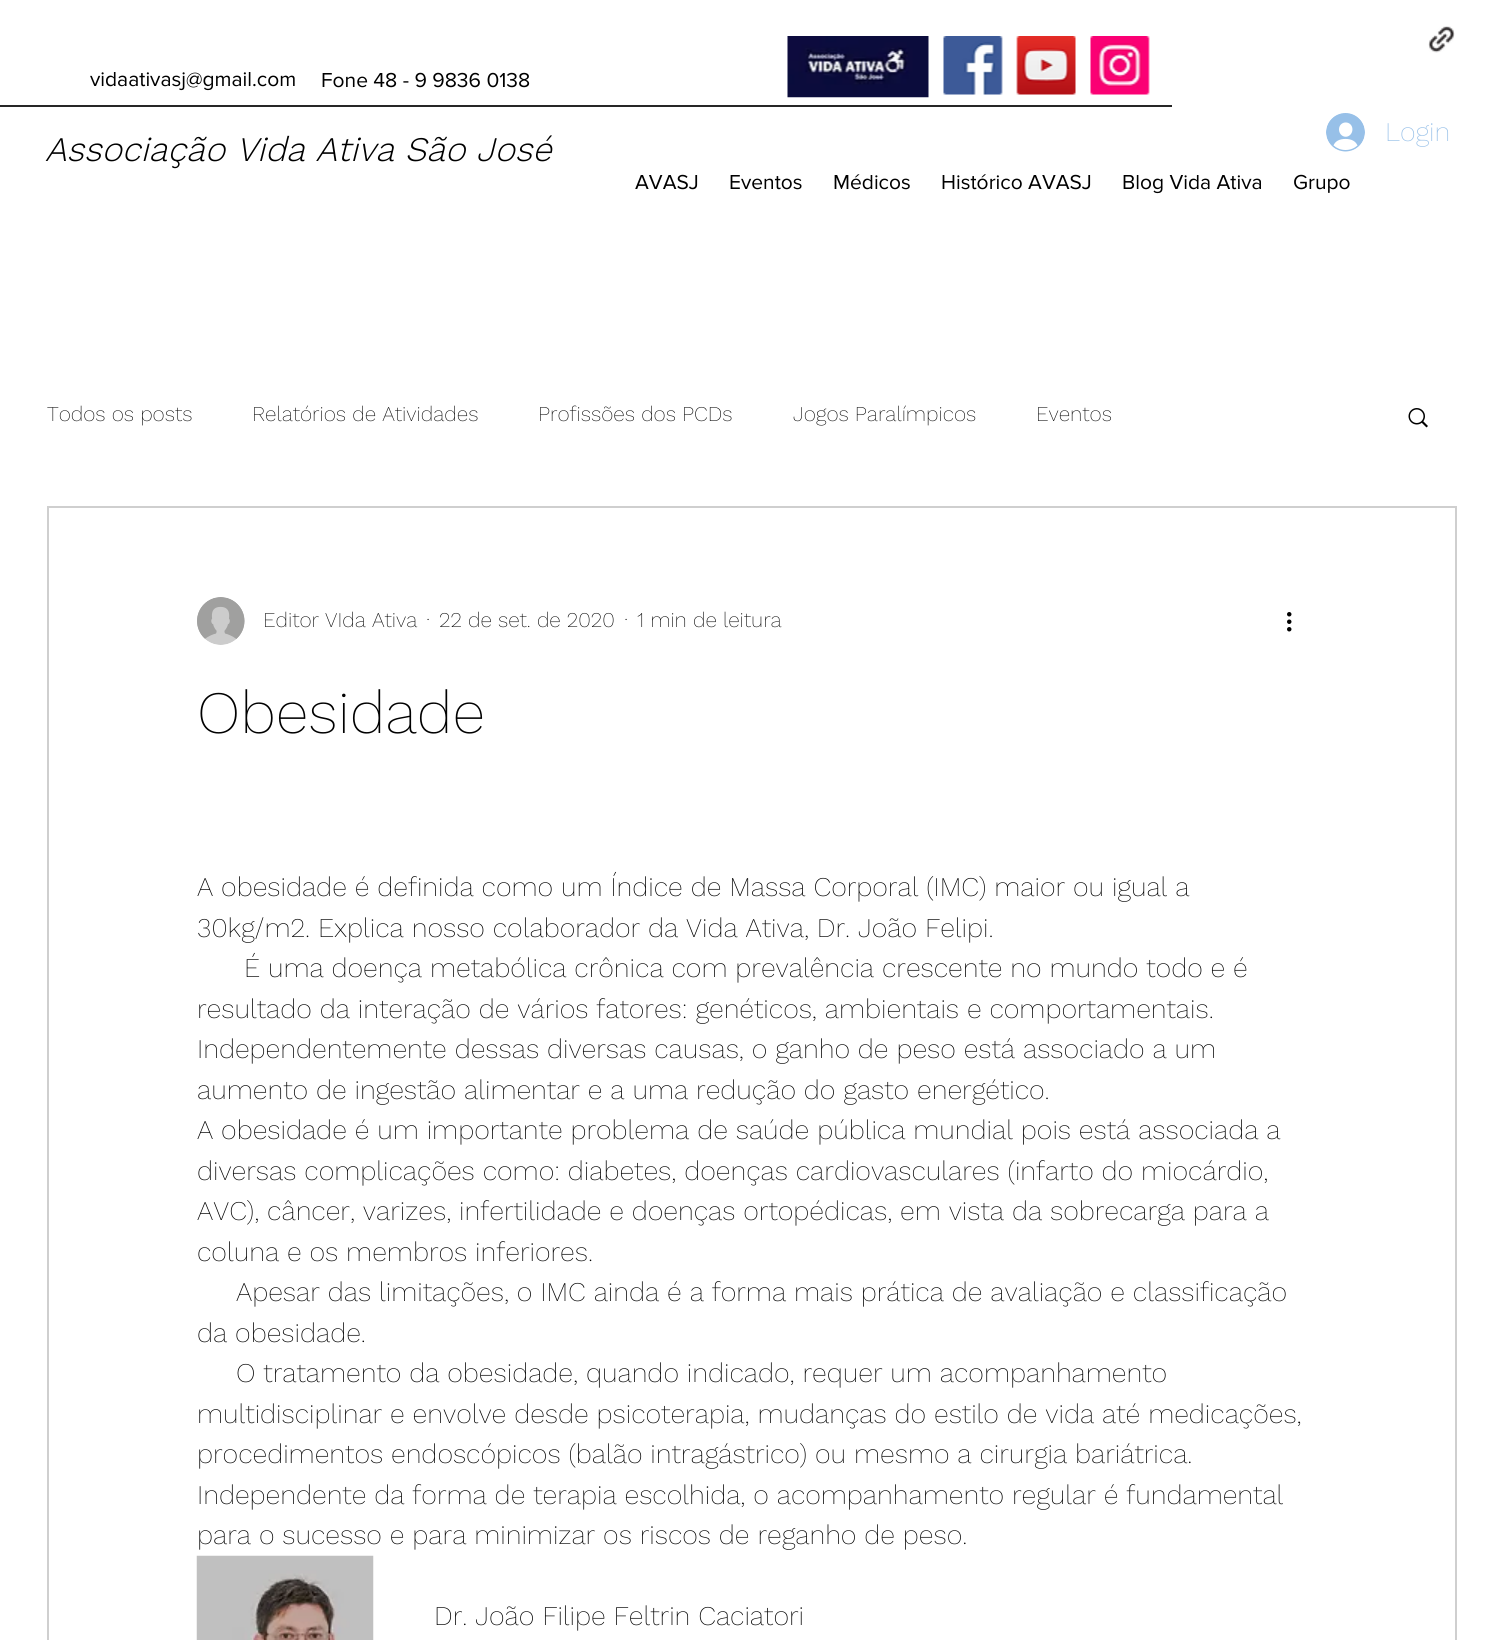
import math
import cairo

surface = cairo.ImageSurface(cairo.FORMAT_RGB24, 1502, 1640)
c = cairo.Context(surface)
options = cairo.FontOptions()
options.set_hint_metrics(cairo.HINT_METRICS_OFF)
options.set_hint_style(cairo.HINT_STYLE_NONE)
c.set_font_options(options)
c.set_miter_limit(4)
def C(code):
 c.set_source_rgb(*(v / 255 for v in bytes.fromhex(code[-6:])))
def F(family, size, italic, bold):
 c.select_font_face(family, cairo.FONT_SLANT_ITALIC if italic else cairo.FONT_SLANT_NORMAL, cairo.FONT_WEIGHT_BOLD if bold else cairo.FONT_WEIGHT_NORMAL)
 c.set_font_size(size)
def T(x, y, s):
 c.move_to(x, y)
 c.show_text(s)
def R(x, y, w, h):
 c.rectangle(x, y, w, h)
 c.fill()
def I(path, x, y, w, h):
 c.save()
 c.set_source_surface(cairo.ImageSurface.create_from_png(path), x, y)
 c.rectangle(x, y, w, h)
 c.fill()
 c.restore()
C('ffffff')
c.paint()
F('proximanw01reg',21,0,0)
C('000000')
T(90,86,'vidaativasj@gmail.com')
I('1.png',787,36,142,62)
I('2.png',943,36,60,59)
I('3.png',1016,36,60,59)
I('4.png',1090,36,60,59)
I('5.png',1428,26,27,27)
T(321,87,'Fone 48 - 9 9836 0138')
C('262626')
R(0,105,1172,2)
F('Work Sans Light',34.5,1,0)
C('000000')
T(45,161,'Associação Vida Ativa São José')
F('proximanw01reg',21,0,0)
T(635,189,'AVASJ')
T(729,189,'Eventos')
T(833,189,'Médicos')
T(941,189,'Histórico AVASJ')
T(1122,189,'Blog Vida Ativa')
T(1293,189,'Grupo')
I('6.png',1326,113,39,39)
F('Work Sans ExtraLight',27,0,0)
C('97c0e8')
T(1385,141,'Login')
F('Work Sans ExtraLight',21,0,0)
C('000000')
T(47,421,'Todos os posts')
T(252,421,'Relatórios de Atividades')
T(538,421,'Profissões dos PCDs')
T(793,421,'Jogos Paralímpicos')
T(1036,421,'Eventos')
I('7.png',1408,408,20,20)
c.rectangle(48,507,1408,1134)
C('cfcfcf')
c.stroke()
I('8.png',197,597,48,48)
C('000000')
T(263,627,'Editor VIda Ativa')
T(426,627,'·')
T(439,627,'22 de set. de 2020')
T(624,627,'·')
T(637,627,'1 min de leitura')
I('9.png',1287,612,5,20)
F('Work Sans ExtraLight',60,0,0)
T(197,733,'Obesidade')
F('Work Sans ExtraLight',27,0,0)
T(197,896,'A obesidade é definida como um Índice de Massa Corporal (IMC) maior ou igual a')
T(197,937,'30kg/m2. Explica nosso colaborador da Vida Ativa, Dr. João Felipi.')
T(244,977,'É uma doença metabólica crônica com prevalência crescente no mundo todo e é')
T(197,1018,'resultado da interação de vários fatores: genéticos, ambientais e comportamentais.')
T(197,1058,'Independentemente dessas diversas causas, o ganho de peso está associado a um')
T(197,1099,'aumento de ingestão alimentar e a uma redução do gasto energético.')
T(197,1139,'A obesidade é um importante problema de saúde pública mundial pois está associada a')
T(197,1180,'diversas complicações como: diabetes, doenças cardiovasculares (infarto do miocárdio,')
T(197,1220,'AVC), câncer, varizes, infertilidade e doenças ortopédicas, em vista da sobrecarga para a')
T(197,1261,'coluna e os membros inferiores.')
T(236,1301,'Apesar das limitações, o IMC ainda é a forma mais prática de avaliação e classificação')
T(197,1342,'da obesidade.')
T(236,1382,'O tratamento da obesidade, quando indicado, requer um acompanhamento')
T(197,1423,'multidisciplinar e envolve desde psicoterapia, mudanças do estilo de vida até medicações,')
T(197,1463,'procedimentos endoscópicos (balão intragástrico) ou mesmo a cirurgia bariátrica.')
T(197,1504,'Independente da forma de terapia escolhida, o acompanhamento regular é fundamental')
T(197,1544,'para o sucesso e para minimizar os riscos de reganho de peso.')
I('10.png',196,1555,178,85)
T(434,1625,'Dr. João Filipe Feltrin Caciatori')
surface.write_to_png('o.png')
